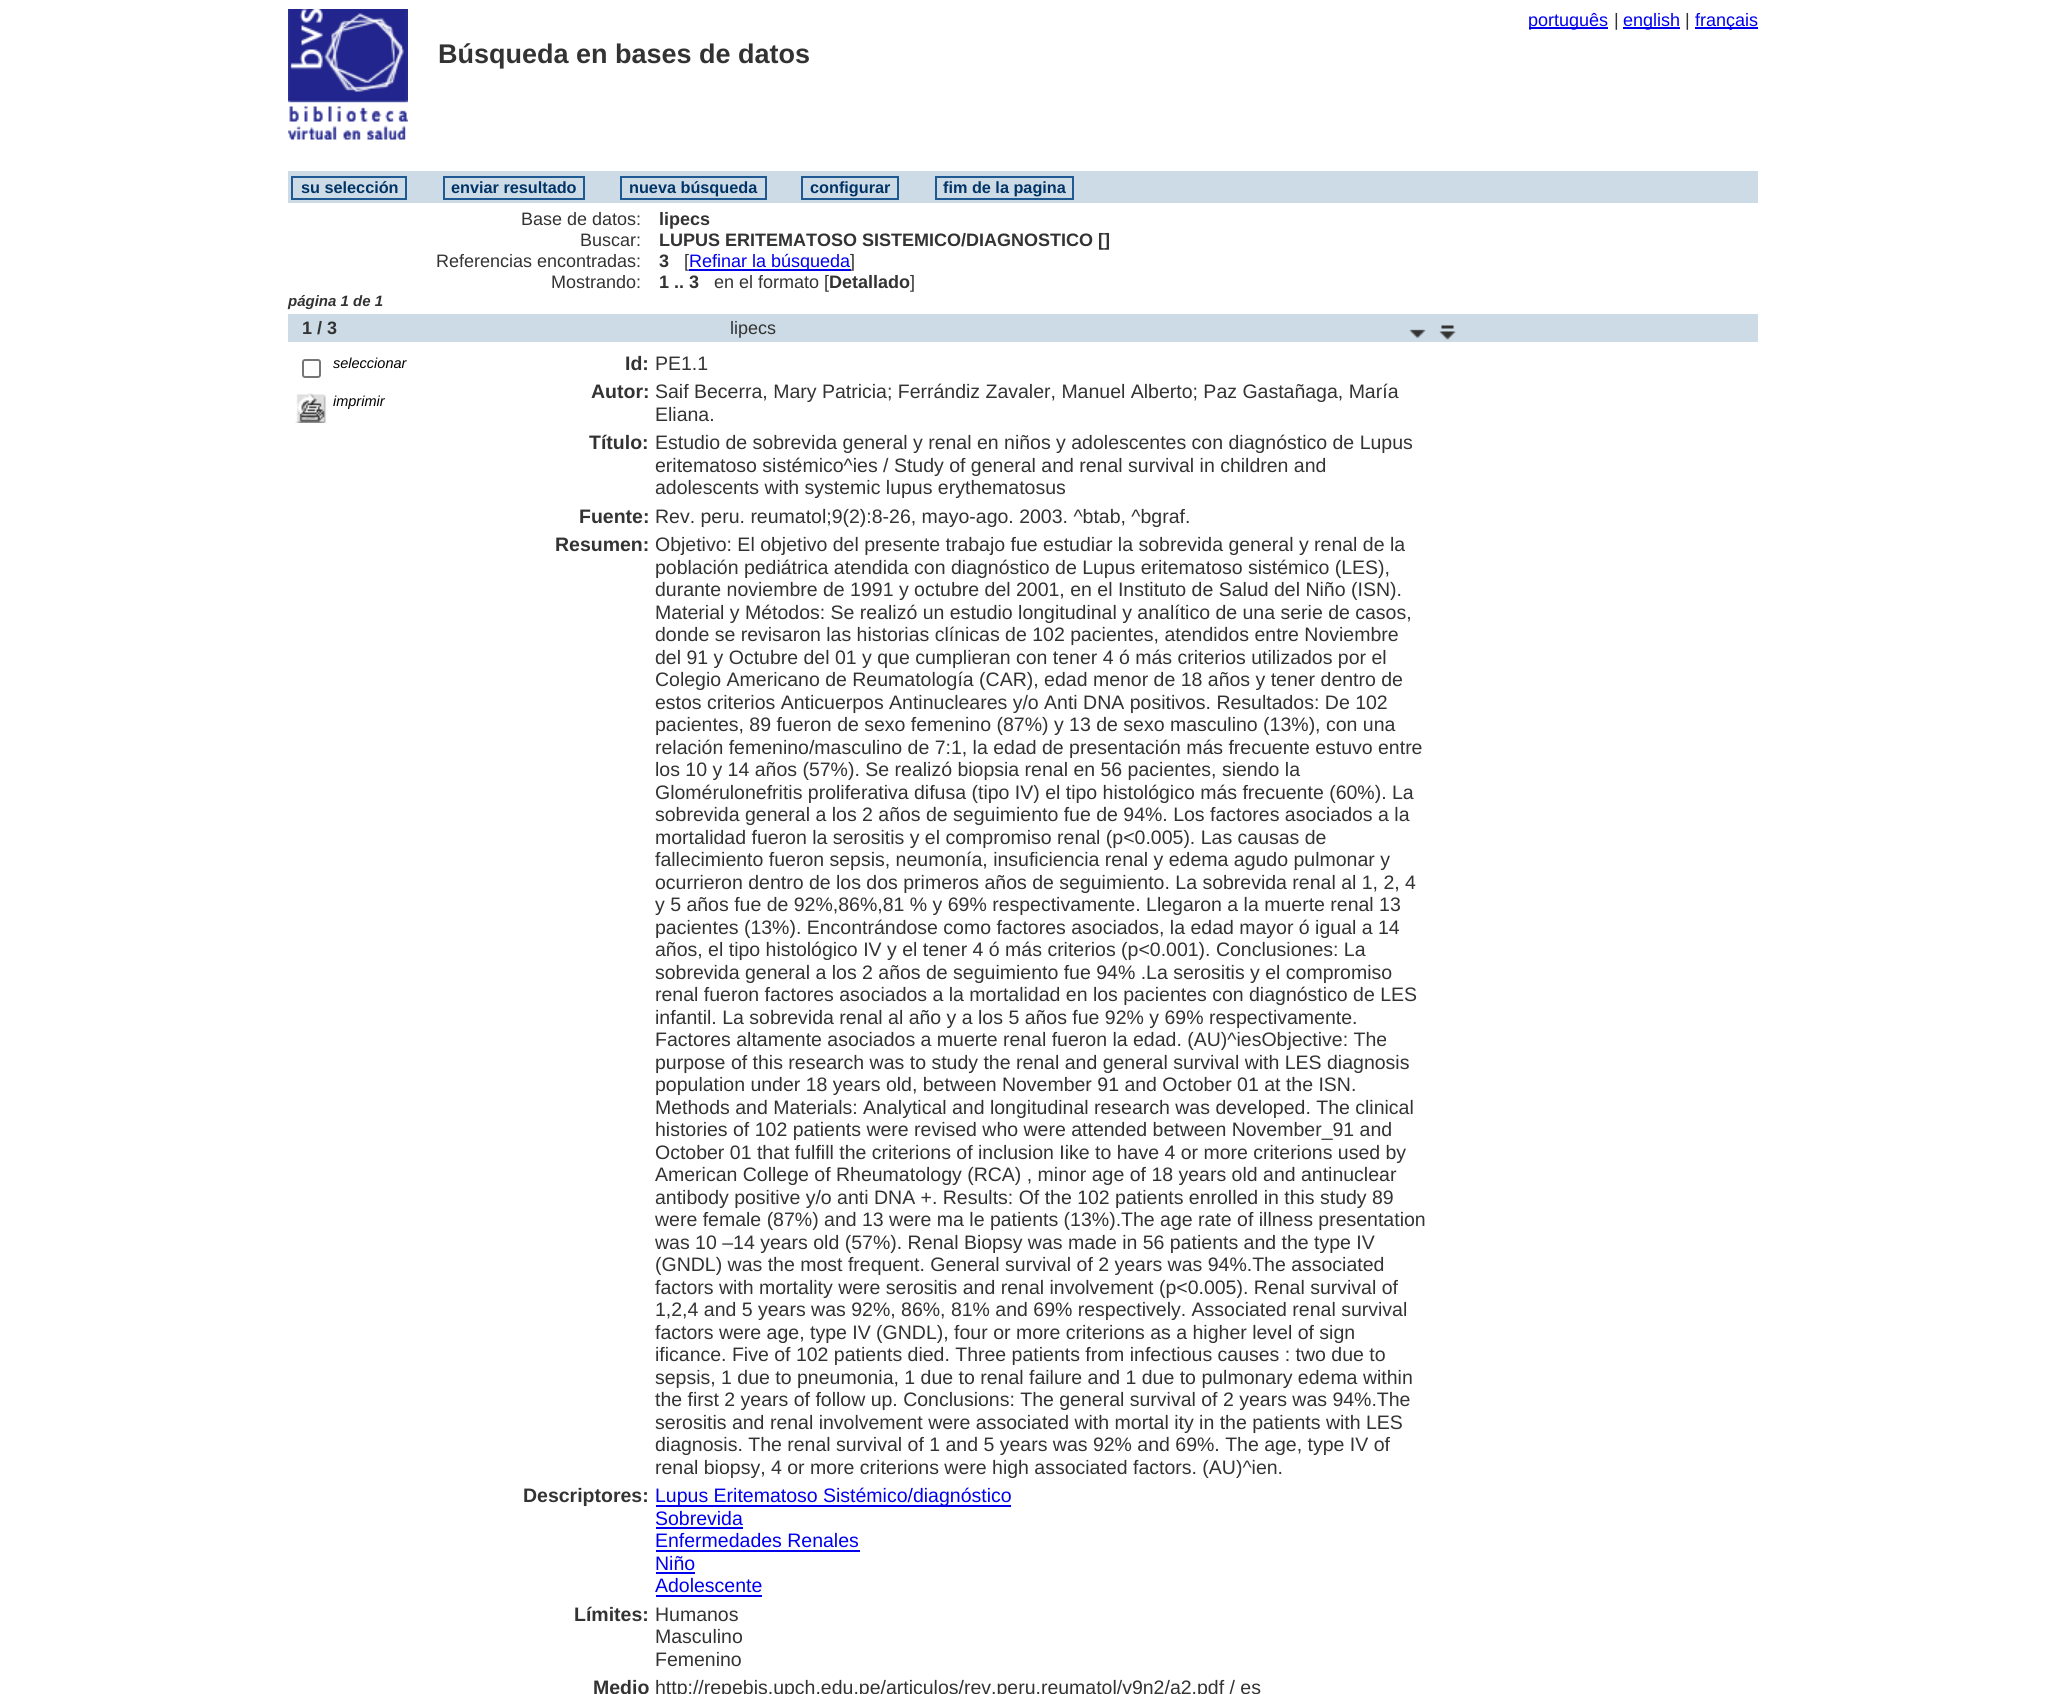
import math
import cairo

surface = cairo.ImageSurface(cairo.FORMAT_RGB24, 2046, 1694)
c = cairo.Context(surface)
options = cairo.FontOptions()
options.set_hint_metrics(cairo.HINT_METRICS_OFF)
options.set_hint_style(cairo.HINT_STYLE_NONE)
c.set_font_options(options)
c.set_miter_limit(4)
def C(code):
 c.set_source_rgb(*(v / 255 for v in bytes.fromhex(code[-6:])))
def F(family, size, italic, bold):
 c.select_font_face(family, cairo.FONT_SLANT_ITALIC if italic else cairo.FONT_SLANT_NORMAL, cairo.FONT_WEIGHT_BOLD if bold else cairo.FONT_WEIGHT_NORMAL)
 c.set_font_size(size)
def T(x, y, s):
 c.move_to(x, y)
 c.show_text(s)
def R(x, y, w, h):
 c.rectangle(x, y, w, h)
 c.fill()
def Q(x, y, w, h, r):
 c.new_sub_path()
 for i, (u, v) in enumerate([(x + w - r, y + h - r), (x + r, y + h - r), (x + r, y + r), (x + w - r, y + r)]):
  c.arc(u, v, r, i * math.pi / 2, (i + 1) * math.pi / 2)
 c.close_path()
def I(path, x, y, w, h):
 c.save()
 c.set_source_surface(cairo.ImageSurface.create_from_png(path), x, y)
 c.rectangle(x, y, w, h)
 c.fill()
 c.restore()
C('ffffff')
c.paint()
C('0000ee')
R(1529,27,79,2)
F('Liberation Sans',18,0,0)
T(1528,26,'português')
C('333333')
T(1614,26,'|')
C('0000ee')
R(1623,27,57,2)
T(1623,26,'english')
C('333333')
T(1685,26,'|')
C('0000ee')
R(1695,27,63,2)
T(1695,26,'français')
I('1.png',288,9,120,131)
F('Liberation Sans',27,0,1)
C('333333')
T(438,63,'Búsqueda en bases de datos')
C('ccdbe5')
R(288,171,1470,32)
c.rectangle(292,177,114,22)
C('1e5991')
c.stroke()
F('Liberation Sans',16.25,0,1)
C('003366')
T(301,193,'su selección')
c.rectangle(444,177,140,22)
C('1e5991')
c.stroke()
C('003366')
T(451,193,'enviar resultado')
c.rectangle(621,177,145,22)
C('1e5991')
c.stroke()
C('003366')
T(629,193,'nueva búsqueda')
c.rectangle(802,177,96,22)
C('1e5991')
c.stroke()
C('003366')
T(810,193,'configurar')
c.rectangle(936,177,137,22)
C('1e5991')
c.stroke()
C('003366')
T(943,193,'fim de la pagina')
F('Liberation Sans',18,0,0)
C('333333')
T(521,225,'Base de datos:')
F('Liberation Sans',18,0,1)
T(659,225,'lipecs')
F('Liberation Sans',18,0,0)
T(580,246,'Buscar:')
F('Liberation Sans',18,0,1)
T(659,246,'LUPUS ERITEMATOSO SISTEMICO/DIAGNOSTICO []')
F('Liberation Sans',18,0,0)
T(436,267,'Referencias encontradas:')
F('Liberation Sans',18,0,1)
T(659,267,'3')
F('Liberation Sans',18,0,0)
T(684,267,'[')
C('0000ee')
R(689,269,162,2)
T(689,267,'Refinar la búsqueda')
C('333333')
T(850,267,']')
T(551,288,'Mostrando:')
F('Liberation Sans',18,0,1)
T(659,288,'1 .. 3')
F('Liberation Sans',18,0,0)
T(714,288,'en el formato [')
F('Liberation Sans',18,0,1)
T(829,288,'Detallado')
F('Liberation Sans',18,0,0)
T(910,288,']')
F('Liberation Sans',15,1,1)
T(288,306,'página 1 de 1')
C('ccdbe5')
R(288,314,1470,28)
F('Liberation Sans',18,0,1)
C('333333')
T(302,334,'1 / 3')
F('Liberation Sans',18,0,0)
T(730,334,'lipecs')
I('2.png',1409,329,17,9)
I('3.png',1439,325,17,15)
Q(303,360,17,17,2)
C('767676')
c.stroke()
F('Liberation Sans',14.5,1,0)
C('000000')
T(333,368,'seleccionar')
I('4.png',295,393,31,30)
T(333,406,'imprimir')
F('Liberation Sans',19.5,0,1)
C('333333')
T(625,370,'Id:')
F('Liberation Sans',19.5,0,0)
T(655,370,'PE1.1')
F('Liberation Sans',19.5,0,1)
T(591,398,'Autor:')
F('Liberation Sans',19.5,0,0)
T(655,398,'Saif Becerra, Mary Patricia; Ferrándiz Zavaler, Manuel Alberto; Paz Gastañaga, María')
T(655,421,'Eliana.')
F('Liberation Sans',19.5,0,1)
T(589,449,'Título:')
F('Liberation Sans',19.5,0,0)
T(655,449,'Estudio de sobrevida general y renal en niños y adolescentes con diagnóstico de Lupus')
T(655,472,'eritematoso sistémico^ies / Study of general and renal survival in children and')
T(655,494,'adolescents with systemic lupus erythematosus')
F('Liberation Sans',19.5,0,1)
T(579,523,'Fuente:')
F('Liberation Sans',19.5,0,0)
T(655,523,'Rev. peru. reumatol;9(2):8-26, mayo-ago. 2003. ^btab, ^bgraf.')
F('Liberation Sans',19.5,0,1)
T(555,551,'Resumen:')
F('Liberation Sans',19.5,0,0)
T(655,551,'Objetivo: El objetivo del presente trabajo fue estudiar la sobrevida general y renal de la')
T(655,574,'población pediátrica atendida con diagnóstico de Lupus eritematoso sistémico (LES),')
T(655,596,'durante noviembre de 1991 y octubre del 2001, en el Instituto de Salud del Niño (ISN).')
T(655,619,'Material y Métodos: Se realizó un estudio longitudinal y analítico de una serie de casos,')
T(655,641,'donde se revisaron las historias clínicas de 102 pacientes, atendidos entre Noviembre')
T(655,664,'del 91 y Octubre del 01 y que cumplieran con tener 4 ó más criterios utilizados por el')
T(655,686,'Colegio Americano de Reumatología (CAR), edad menor de 18 años y tener dentro de')
T(655,709,'estos criterios Anticuerpos Antinucleares y/o Anti DNA positivos. Resultados: De 102')
T(655,731,'pacientes, 89 fueron de sexo femenino (87%) y 13 de sexo masculino (13%), con una')
T(655,754,'relación femenino/masculino de 7:1, la edad de presentación más frecuente estuvo entre')
T(655,776,'los 10 y 14 años (57%). Se realizó biopsia renal en 56 pacientes, siendo la')
T(655,799,'Glomérulonefritis proliferativa difusa (tipo IV) el tipo histológico más frecuente (60%). La')
T(655,821,'sobrevida general a los 2 años de seguimiento fue de 94%. Los factores asociados a la')
T(655,844,'mortalidad fueron la serositis y el compromiso renal (p<0.005). Las causas de')
T(655,866,'fallecimiento fueron sepsis, neumonía, insuficiencia renal y edema agudo pulmonar y')
T(655,889,'ocurrieron dentro de los dos primeros años de seguimiento. La sobrevida renal al 1, 2, 4')
T(655,911,'y 5 años fue de 92%,86%,81 % y 69% respectivamente. Llegaron a la muerte renal 13')
T(655,934,'pacientes (13%). Encontrándose como factores asociados, la edad mayor ó igual a 14')
T(655,956,'años, el tipo histológico IV y el tener 4 ó más criterios (p<0.001). Conclusiones: La')
T(655,979,'sobrevida general a los 2 años de seguimiento fue 94% .La serositis y el compromiso')
T(655,1001,'renal fueron factores asociados a la mortalidad en los pacientes con diagnóstico de LES')
T(655,1024,'infantil. La sobrevida renal al año y a los 5 años fue 92% y 69% respectivamente.')
T(655,1046,'Factores altamente asociados a muerte renal fueron la edad. (AU)^iesObjective: The')
T(655,1069,'purpose of this research was to study the renal and general survival with LES diagnosis')
T(655,1091,'population under 18 years old, between November 91 and October 01 at the ISN.')
T(655,1114,'Methods and Materials: Analytical and longitudinal research was developed. The clinical')
T(655,1136,'histories of 102 patients were revised who were attended between November_91 and')
T(655,1159,'October 01 that fulfill the criterions of inclusion Iike to have 4 or more criterions used by')
T(655,1181,'American College of Rheumatology (RCA) , minor age of 18 years old and antinuclear')
T(655,1204,'antibody positive y/o anti DNA +. Results: Of the 102 patients enrolled in this study 89')
T(655,1226,'were female (87%) and 13 were ma le patients (13%).The age rate of illness presentation')
T(655,1249,'was 10 –14 years old (57%). Renal Biopsy was made in 56 patients and the type IV')
T(655,1271,'(GNDL) was the most frequent. General survival of 2 years was 94%.The associated')
T(655,1294,'factors with mortality were serositis and renal involvement (p<0.005). Renal survival of')
T(655,1316,'1,2,4 and 5 years was 92%, 86%, 81% and 69% respectively. Associated renal survival')
T(655,1339,'factors were age, type IV (GNDL), four or more criterions as a higher level of sign')
T(655,1361,'ificance. Five of 102 patients died. Three patients from infectious causes : two due to')
T(655,1384,'sepsis, 1 due to pneumonia, 1 due to renal failure and 1 due to pulmonary edema within')
T(655,1406,'the first 2 years of follow up. Conclusions: The general survival of 2 years was 94%.The')
T(655,1429,'serositis and renal involvement were associated with mortal ity in the patients with LES')
T(655,1451,'diagnosis. The renal survival of 1 and 5 years was 92% and 69%. The age, type IV of')
T(655,1474,'renal biopsy, 4 or more criterions were high associated factors. (AU)^ien.')
F('Liberation Sans',19.5,0,1)
T(523,1502,'Descriptores:')
C('0000ee')
R(656,1505,355,2)
F('Liberation Sans',19.5,0,0)
T(655,1502,'Lupus Eritematoso Sistémico/diagnóstico')
T(655,1525,'Sobrevida')
R(656,1527,87,2)
T(655,1547,'Enfermedades Renales')
R(656,1550,204,2)
T(655,1570,'Niño')
R(656,1572,39,2)
T(655,1592,'Adolescente')
R(656,1595,106,2)
F('Liberation Sans',19.5,0,1)
C('333333')
T(574,1621,'Límites:')
F('Liberation Sans',19.5,0,0)
T(655,1621,'Humanos')
T(655,1643,'Masculino')
T(655,1666,'Femenino')
F('Liberation Sans',19.5,0,1)
T(593,1694,'Medio')
F('Liberation Sans',19.5,0,0)
T(655,1694,'http://repebis.upch.edu.pe/articulos/rev.peru.reumatol/v9n2/a2.pdf / es')
surface.write_to_png('o.png')
